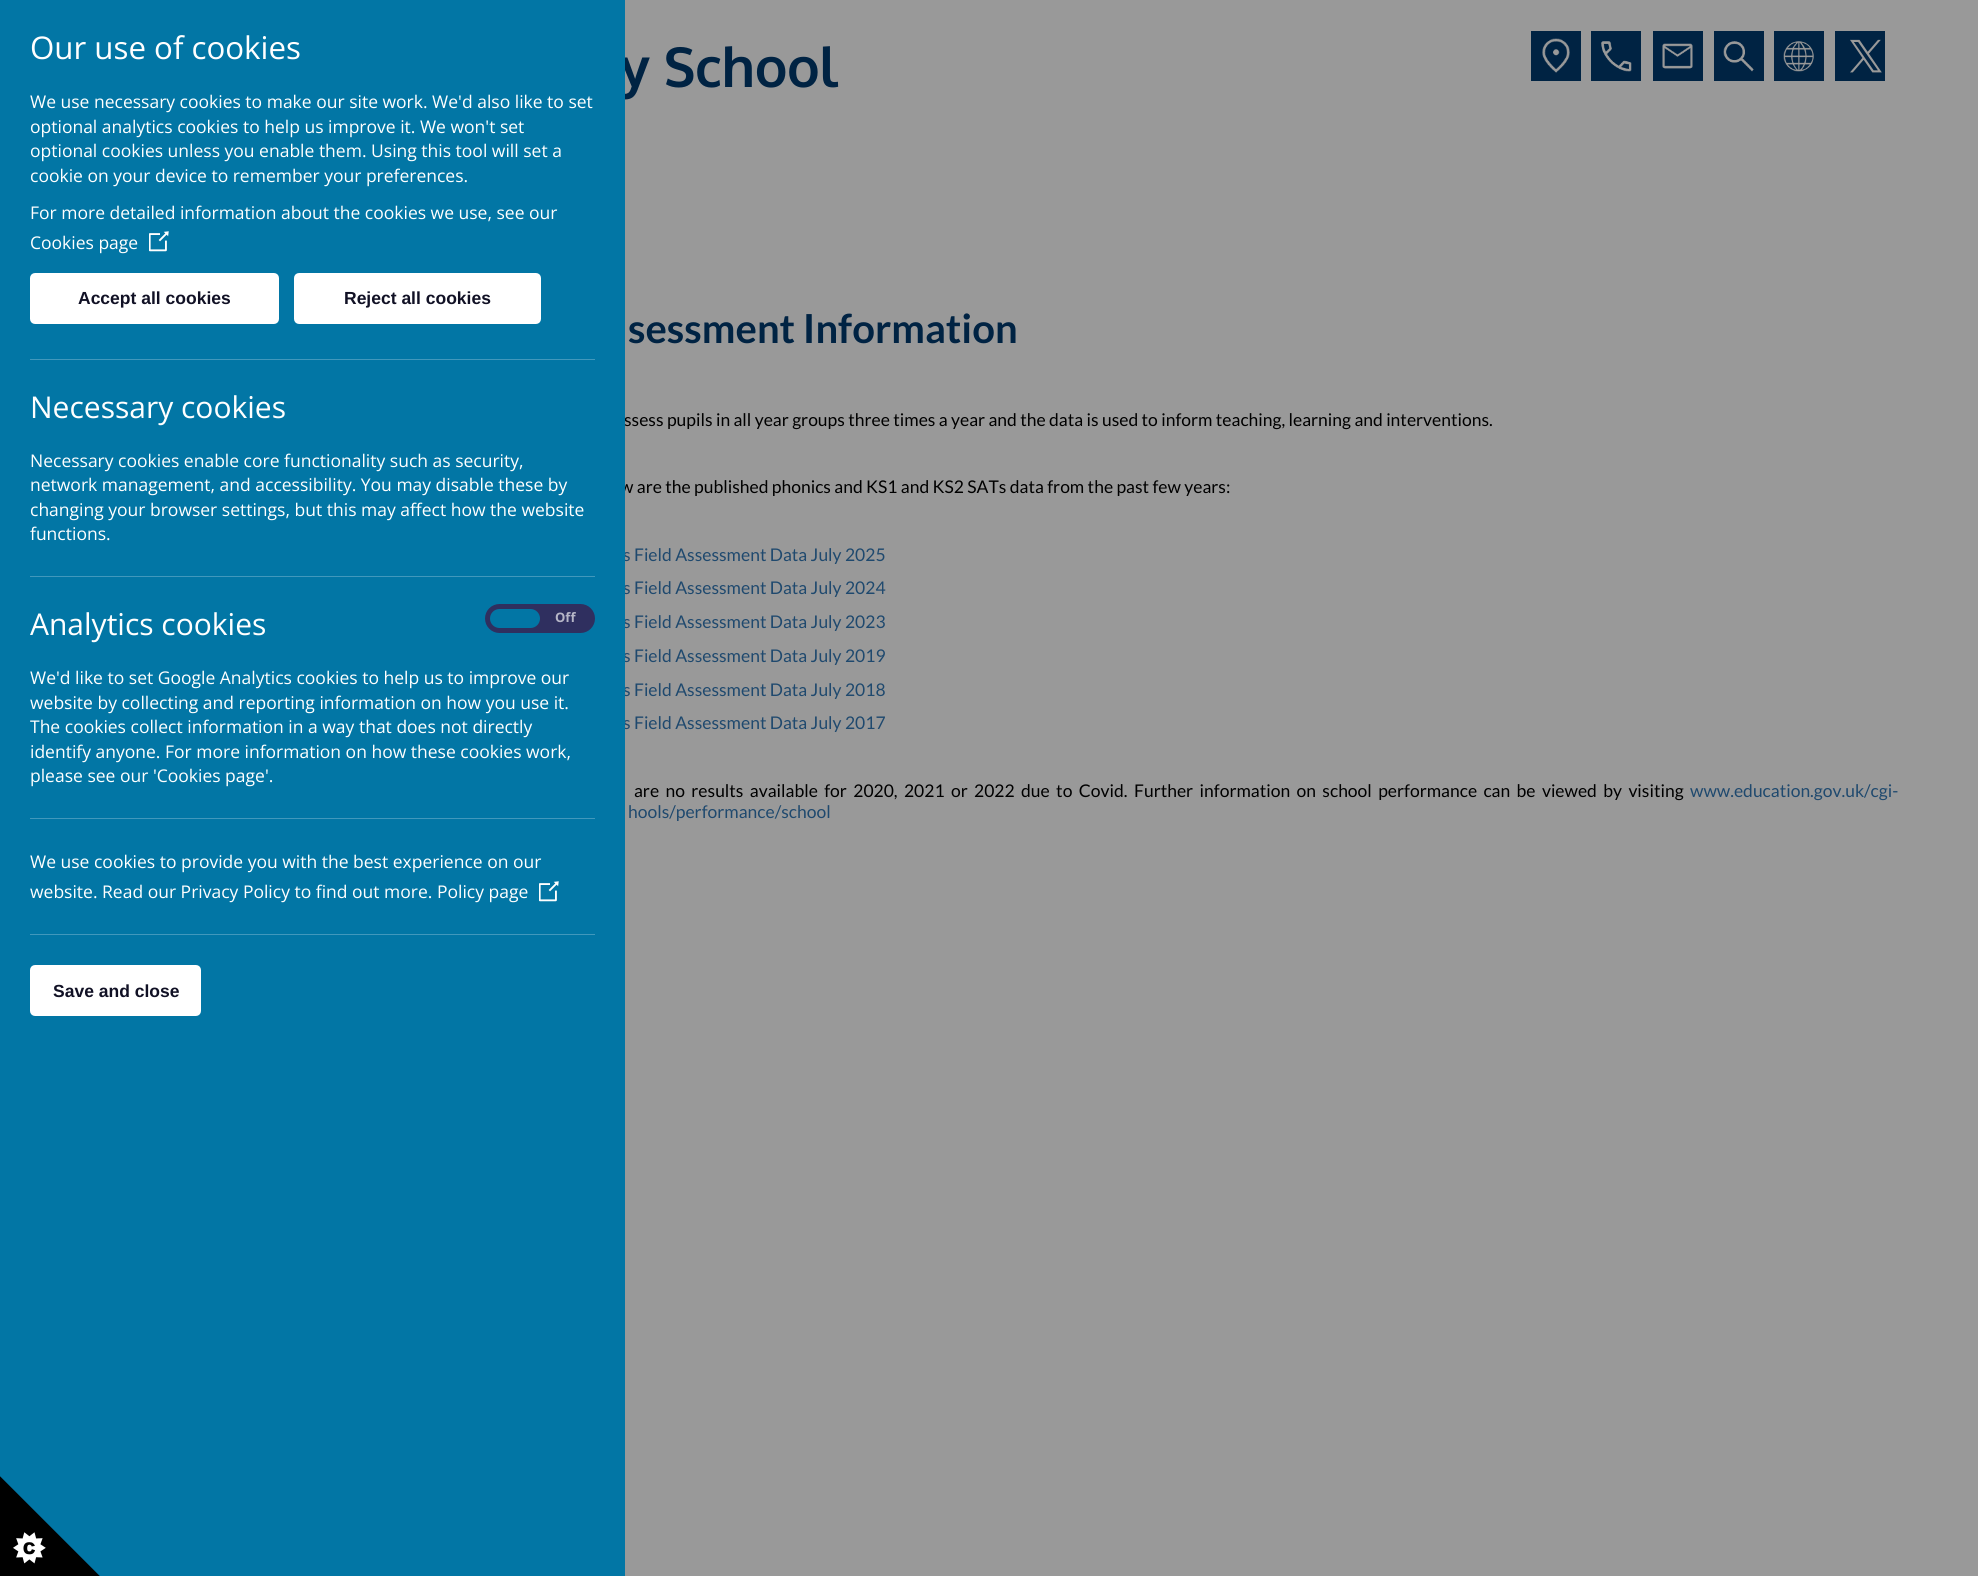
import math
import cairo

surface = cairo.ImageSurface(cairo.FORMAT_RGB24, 1978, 1576)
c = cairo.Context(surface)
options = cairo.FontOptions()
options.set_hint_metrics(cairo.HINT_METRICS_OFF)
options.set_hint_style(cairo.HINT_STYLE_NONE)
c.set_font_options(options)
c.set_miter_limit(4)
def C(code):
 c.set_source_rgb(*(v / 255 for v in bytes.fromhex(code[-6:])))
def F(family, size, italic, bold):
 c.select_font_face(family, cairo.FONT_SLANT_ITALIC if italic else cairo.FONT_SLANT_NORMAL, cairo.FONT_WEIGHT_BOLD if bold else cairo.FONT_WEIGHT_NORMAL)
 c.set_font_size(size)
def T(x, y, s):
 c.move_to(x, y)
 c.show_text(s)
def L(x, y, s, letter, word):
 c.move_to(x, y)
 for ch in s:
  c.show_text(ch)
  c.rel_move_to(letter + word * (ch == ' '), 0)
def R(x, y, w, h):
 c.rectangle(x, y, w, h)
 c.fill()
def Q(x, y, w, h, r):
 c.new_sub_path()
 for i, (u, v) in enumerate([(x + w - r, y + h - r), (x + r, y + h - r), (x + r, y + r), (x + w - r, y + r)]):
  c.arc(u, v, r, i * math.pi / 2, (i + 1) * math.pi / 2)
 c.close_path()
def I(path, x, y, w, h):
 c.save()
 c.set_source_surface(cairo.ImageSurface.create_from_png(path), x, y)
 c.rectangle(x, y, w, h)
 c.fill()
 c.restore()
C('999999')
c.paint()
F('Oxygen',55,0,1)
C('002343')
L(620,87,'y School',-.5,0)
F('Lato',17.5,0,0)
C('000000')
T(624,426,'ssess pupils in all year groups three times a year and the data is used to inform teaching, learning and interventions.')
T(620,493,'w are the published phonics and KS1 and KS2 SATs data from the past few years:')
C('1f496e')
T(623,561,'s Field Assessment Data July 2025')
T(623,594,'s Field Assessment Data July 2024')
T(623,628,'s Field Assessment Data July 2023')
T(623,662,'s Field Assessment Data July 2019')
T(623,696,'s Field Assessment Data July 2018')
T(623,729,'s Field Assessment Data July 2017')
C('0276a5')
R(0,0,625,1576)
F('Open Sans',31.25,0,0)
C('ffffff')
T(30,59,'Our use of cookies')
F('Open Sans',17.5,0,0)
T(30,108,'We use necessary cookies to make our site work. We\'d also like to set')
T(30,133,'optional analytics cookies to help us improve it. We won\'t set')
T(30,157,'optional cookies unless you enable them. Using this tool will set a')
T(30,182,'cookie on your device to remember your preferences.')
T(30,219,'For more detailed information about the cookies we use, see our')
T(30,249,'Cookies page')
I('1.png',149,231,20,21)
Q(31.5,274.5,246,48,3.5)
c.fill_preserve()
c.set_line_width(3)
c.stroke()
F('Liberation Sans',17.5,0,1)
C('111125')
T(78,304,'Accept all cookies')
C('ffffff')
Q(295.5,274.5,244,48,3.5)
c.fill_preserve()
c.stroke()
C('111125')
T(344,304,'Reject all cookies')
C('4198bc')
R(30,359,565,1)
F('Open Sans',30,0,0)
C('ffffff')
T(30,418,'Necessary cookies')
F('Open Sans',17.5,0,0)
T(30,467,'Necessary cookies enable core functionality such as security,')
T(30,491,'network management, and accessibility. You may disable these by')
T(30,516,'changing your browser settings, but this may affect how the website')
T(30,540,'functions.')
C('4198bc')
R(30,576,565,1)
F('Open Sans',30,0,0)
C('ffffff')
T(30,635,'Analytics cookies')
C('2f2f5f')
Q(487.5,606.5,105,24,12)
c.fill_preserve()
c.set_line_width(5)
c.stroke()
C('0276a5')
Q(490,609,50,19,9.5)
c.fill()
F('Open Sans',13,0,1)
C('b6b6c7')
T(555,622,'Off')
F('Open Sans',17.5,0,0)
C('ffffff')
T(30,684,'We\'d like to set Google Analytics cookies to help us to improve our')
T(30,709,'website by collecting and reporting information on how you use it.')
T(30,733,'The cookies collect information in a way that does not directly')
T(30,758,'identify anyone. For more information on how these cookies work,')
T(30,782,'please see our \'Cookies page\'.')
C('4198bc')
R(30,818,565,1)
C('ffffff')
T(30,868,'We use cookies to provide you with the best experience on our')
T(30,898,'website. Read our Privacy Policy to find out more. Policy page')
I('1.png',539,881,20,21)
C('4198bc')
R(30,934,565,1)
C('ffffff')
Q(31.5,966.5,168,48,3.5)
c.fill_preserve()
c.set_line_width(3)
c.stroke()
F('Liberation Sans',17.5,0,1)
C('111125')
T(53,997,'Save and close')
I('2.png',0,1476,100,100)
C('002343')
R(1531,31,50,50)
I('3.png',1542,38,28,35)
R(1591,31,50,50)
I('4.png',1601,41,31,31)
R(1653,31,50,50)
I('5.png',1662,43,31,26)
R(1714,31,50,50)
I('6.png',1723,41,31,31)
R(1774,31,50,50)
I('7.png',1783,41,31,31)
R(1835,31,50,50)
I('8.png',1850,39,32,34)
F('Lato',40,0,1)
T(628,343,'sessment Information')
F('Lato',17.5,0,0)
C('000000')
L(634,797,'are no results available for 2020, 2021 or 2022 due to Covid.',0,3)
L(1134,797,'Further information on school performance can be viewed by visiting',0,3)
C('1f496e')
T(1690,797,'www.education.gov.uk/cgi-')
T(628,818,'hools/performance/school')
surface.write_to_png('o.png')
